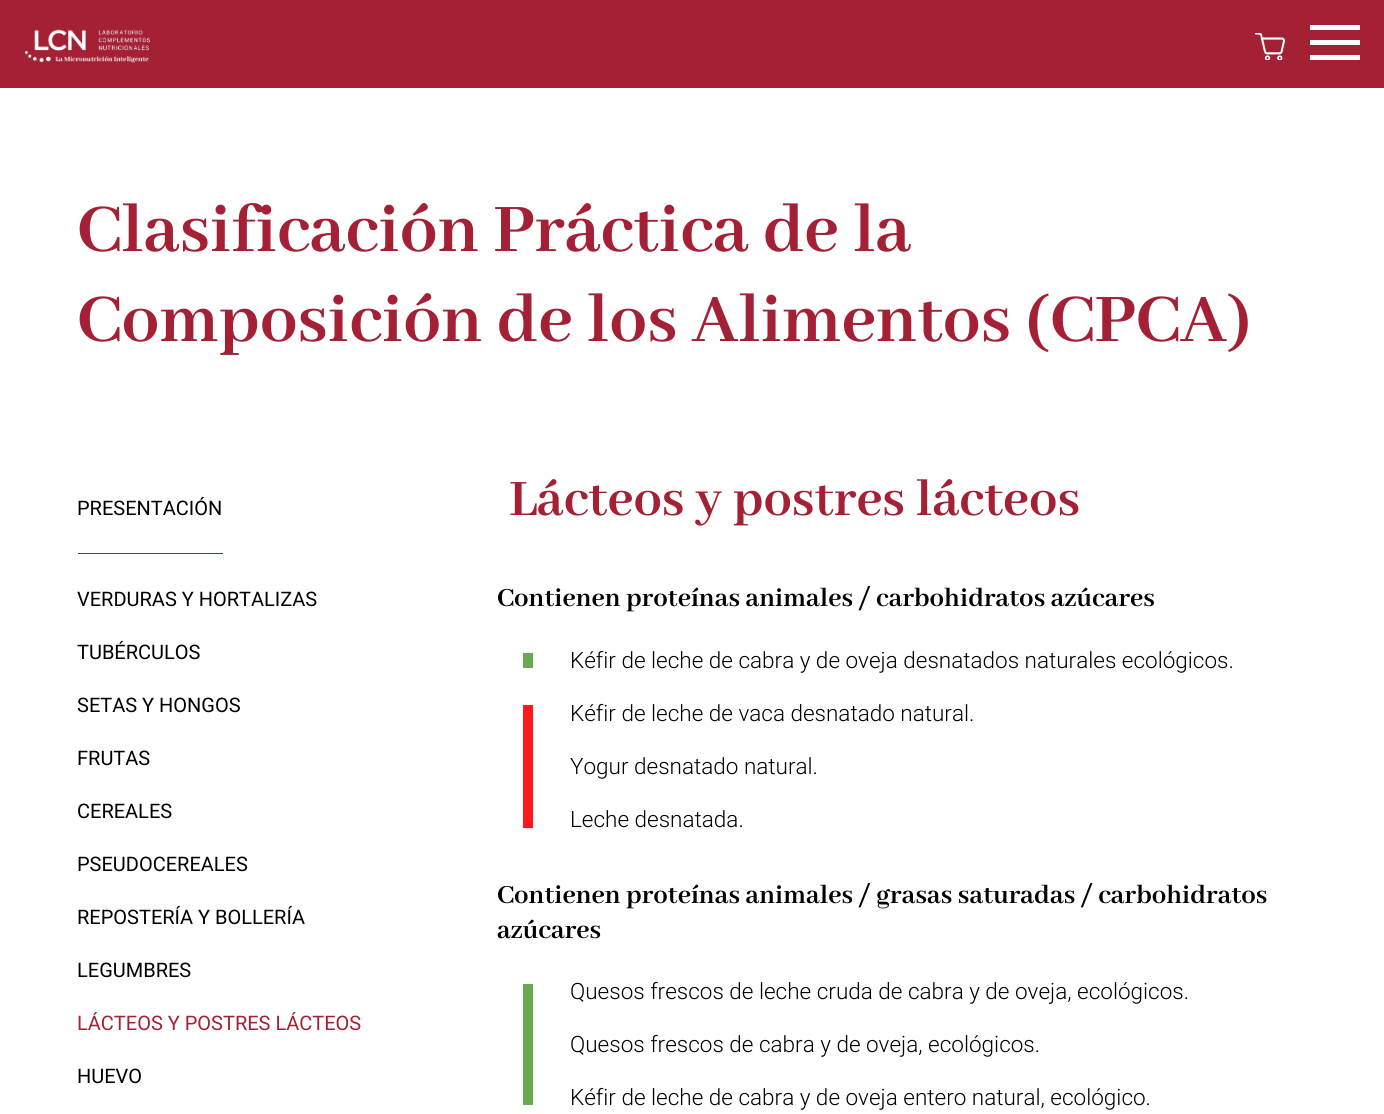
import math
import cairo

surface = cairo.ImageSurface(cairo.FORMAT_RGB24, 1384, 1114)
c = cairo.Context(surface)
options = cairo.FontOptions()
options.set_hint_metrics(cairo.HINT_METRICS_OFF)
options.set_hint_style(cairo.HINT_STYLE_NONE)
c.set_font_options(options)
c.set_miter_limit(4)
def C(code):
 c.set_source_rgb(*(v / 255 for v in bytes.fromhex(code[-6:])))
def F(family, size, italic, bold):
 c.select_font_face(family, cairo.FONT_SLANT_ITALIC if italic else cairo.FONT_SLANT_NORMAL, cairo.FONT_WEIGHT_BOLD if bold else cairo.FONT_WEIGHT_NORMAL)
 c.set_font_size(size)
def T(x, y, s):
 c.move_to(x, y)
 c.show_text(s)
def R(x, y, w, h):
 c.rectangle(x, y, w, h)
 c.fill()
def I(path, x, y, w, h):
 c.save()
 c.set_source_surface(cairo.ImageSurface.create_from_png(path), x, y)
 c.rectangle(x, y, w, h)
 c.fill()
 c.restore()
C('ffffff')
c.paint()
C('a32035')
R(0,0,1384,88)
I('1.png',25,29,125,34)
I('2.png',1255,33,30,27)
C('ffffff')
R(1310,25,50,5)
R(1310,40,50,5)
R(1310,55,50,5)
F('Abhaya Libre',75,0,1)
C('a32035')
T(77,251,'Clasificación Práctica de la')
T(77,341,'Composición de los Alimentos (CPCA)')
R(78,553,145,1)
F('Roboto',20,0,0)
C('000000')
T(77,515,'PRESENTACIÓN')
T(77,606,'VERDURAS Y HORTALIZAS')
T(77,659,'TUBÉRCULOS')
T(77,712,'SETAS Y HONGOS')
T(77,765,'FRUTAS')
T(77,818,'CEREALES')
T(77,871,'PSEUDOCEREALES')
T(77,924,'REPOSTERÍA Y BOLLERÍA')
T(77,977,'LEGUMBRES')
C('a32035')
T(77,1030,'LÁCTEOS Y POSTRES LÁCTEOS')
C('000000')
T(77,1083,'HUEVO')
F('Abhaya Libre',56.25,0,1)
C('a32035')
T(509,515,'Lácteos y postres lácteos')
F('Abhaya Libre',28.75,0,1)
C('000000')
T(497,606,'Contienen proteínas animales / carbohidratos azúcares')
C('68ab50')
R(523,653,10,15)
F('Roboto Light',22.5,0,0)
C('000000')
T(570,668,'Kéfir de leche de cabra y de oveja desnatados naturales ecológicos.')
C('ff191f')
R(523,705,10,16)
C('000000')
T(570,721,'Kéfir de leche de vaca desnatado natural.')
C('ff191f')
R(523,721,10,53)
C('000000')
T(570,774,'Yogur desnatado natural.')
C('ff191f')
R(523,774,10,54)
C('000000')
T(570,827,'Leche desnatada.')
F('Abhaya Libre',28.75,0,1)
T(497,903,'Contienen proteínas animales / grasas saturadas / carbohidratos')
T(497,938,'azúcares')
C('68ab50')
R(523,984,10,16)
F('Roboto Light',22.5,0,0)
C('000000')
T(570,999,'Quesos frescos de leche cruda de cabra y de oveja, ecológicos.')
C('68ab50')
R(523,1000,10,53)
C('000000')
T(570,1052,'Quesos frescos de cabra y de oveja, ecológicos.')
C('68ab50')
R(523,1053,10,52)
C('000000')
T(570,1105,'Kéfir de leche de cabra y de oveja entero natural, ecológico.')
surface.write_to_png('o.png')
